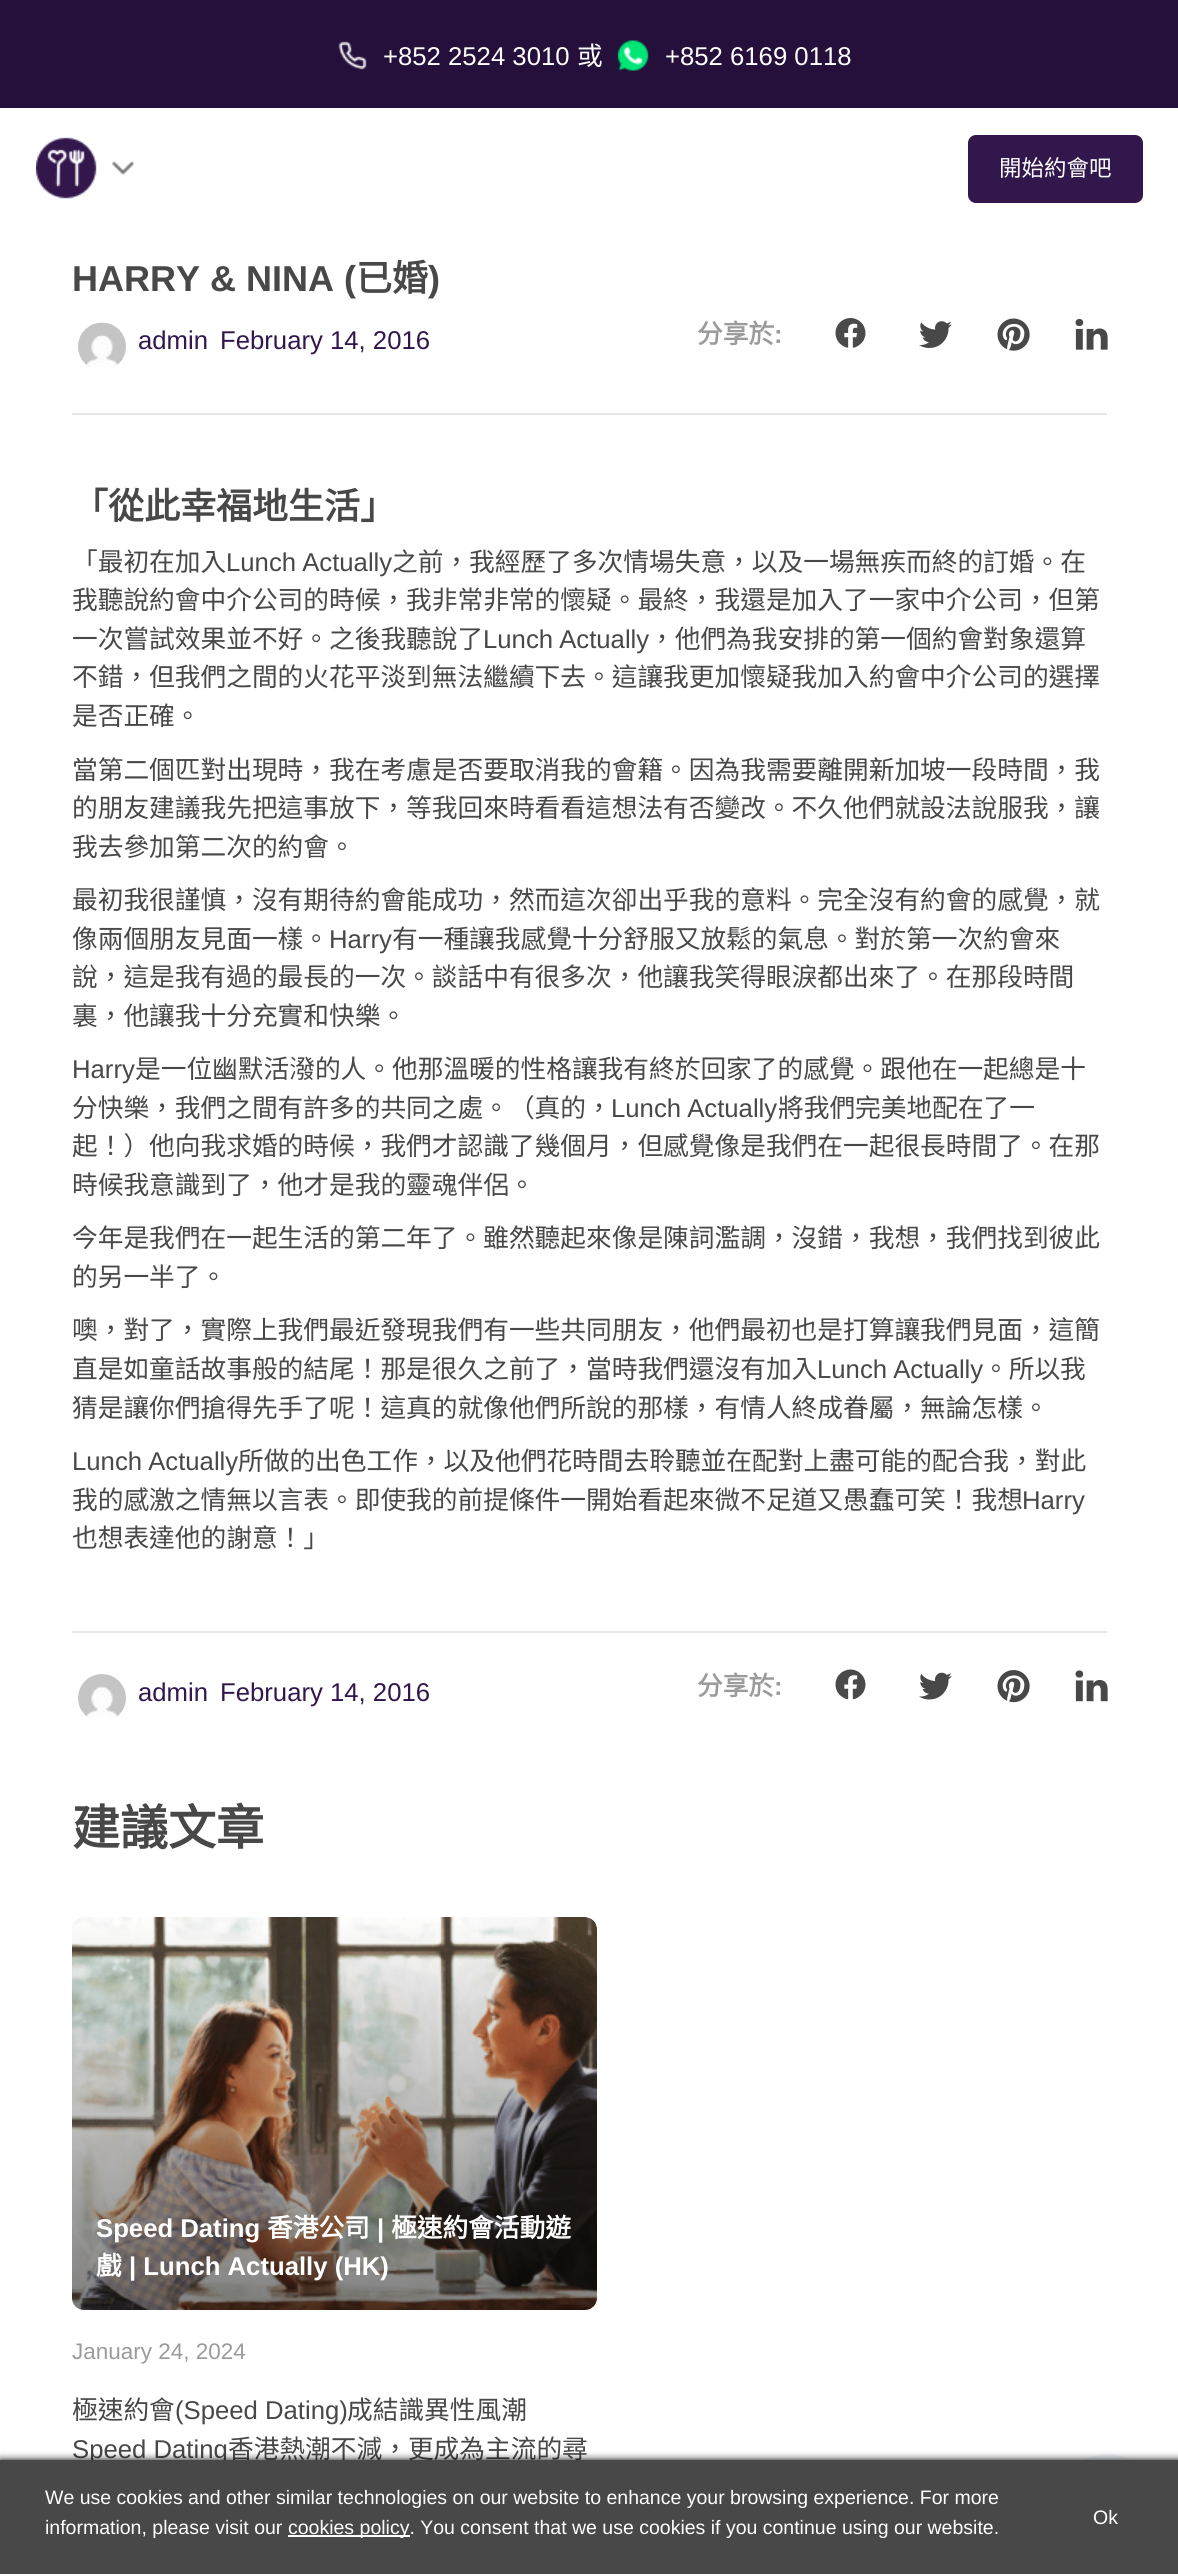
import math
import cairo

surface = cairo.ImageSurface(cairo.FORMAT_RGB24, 1178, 2574)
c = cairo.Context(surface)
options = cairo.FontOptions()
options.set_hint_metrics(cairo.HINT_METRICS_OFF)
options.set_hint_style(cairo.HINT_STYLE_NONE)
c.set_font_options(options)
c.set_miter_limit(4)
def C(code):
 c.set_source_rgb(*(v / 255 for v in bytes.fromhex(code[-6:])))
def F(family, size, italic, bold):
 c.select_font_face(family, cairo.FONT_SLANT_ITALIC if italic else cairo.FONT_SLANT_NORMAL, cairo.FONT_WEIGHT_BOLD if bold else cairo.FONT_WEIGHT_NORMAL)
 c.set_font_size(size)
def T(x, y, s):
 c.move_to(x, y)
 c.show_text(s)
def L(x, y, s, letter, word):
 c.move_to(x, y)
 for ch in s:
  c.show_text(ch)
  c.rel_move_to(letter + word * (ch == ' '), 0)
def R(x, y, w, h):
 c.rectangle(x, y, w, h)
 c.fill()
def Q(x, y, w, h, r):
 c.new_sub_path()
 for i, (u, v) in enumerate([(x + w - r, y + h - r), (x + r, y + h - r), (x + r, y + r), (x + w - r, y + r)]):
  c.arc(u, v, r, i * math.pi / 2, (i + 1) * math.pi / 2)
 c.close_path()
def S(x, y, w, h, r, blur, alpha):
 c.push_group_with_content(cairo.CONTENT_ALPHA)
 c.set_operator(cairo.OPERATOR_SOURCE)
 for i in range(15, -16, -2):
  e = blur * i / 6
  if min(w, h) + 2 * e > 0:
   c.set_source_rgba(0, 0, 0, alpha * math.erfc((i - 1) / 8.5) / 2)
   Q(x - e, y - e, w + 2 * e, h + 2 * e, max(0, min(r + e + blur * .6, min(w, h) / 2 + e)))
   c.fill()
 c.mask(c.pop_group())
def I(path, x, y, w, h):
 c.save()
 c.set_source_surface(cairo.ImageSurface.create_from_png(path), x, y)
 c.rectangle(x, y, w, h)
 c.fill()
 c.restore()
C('ffffff')
c.paint()
C('250f3b')
R(0,0,1178,108)
I('1.png',338,41,29,29)
F('Liberation Sans',25.7,0,0)
C('ffffff')
T(383,65,'+852 2524 3010')
F('Noto Sans CJK HK',25.7,0,0)
T(577,65,'或')
I('2.png',617,40,32,31)
F('Liberation Sans',25.7,0,0)
T(665,65,'+852 6169 0118')
I('3.png',36,137,98,62)
C('32174d')
Q(969,136,173,66,7)
c.fill_preserve()
c.stroke()
F('Noto Sans CJK HK',22.5,0,0)
C('ffffff')
T(999,176,'開始約會吧')
F('Liberation Sans',36,0,1)
C('484848')
T(72,291,'HARRY & NINA (')
F('Noto Sans CJK HK',36,0,1)
T(356,291,'已婚')
F('Liberation Sans',36,0,1)
T(428,291,')')
I('4.png',78,322,48,45)
F('Liberation Sans',25.7,0,0)
C('32174d')
T(138,349,'admin')
T(220,349,'February 14, 2016')
F('Noto Sans CJK HK',25.7,0,1)
C('9b9b9b')
T(697,343,'分享於')
F('Liberation Sans',25.7,0,1)
T(774,343,':')
I('5.png',835,318,31,30)
I('6.png',919,321,33,27)
I('7.png',997,318,33,33)
I('8.png',1075,319,33,31)
C('e6e6e6')
R(72,413,1035,2)
F('Noto Sans CJK HK',36,0,1)
C('484848')
T(72,519,'「從此幸福地生活」')
F('Noto Sans CJK HK',25.7,0,0)
T(72,571,'「最初在加入')
F('Liberation Sans',25.7,0,0)
L(226,571,'Lunch Actually',0,-1)
F('Noto Sans CJK HK',25.7,0,0)
T(392,571,'之前，我經歷了多次情場失意，以及一場無疾而終的訂婚。在')
T(72,609,'我聽說約會中介公司的時候，我非常非常的懷疑。最終，我還是加入了一家中介公司，但第')
T(72,648,'一次嘗試效果並不好。之後我聽說了')
F('Liberation Sans',25.7,0,0)
L(483,648,'Lunch Actually',0,-1)
F('Noto Sans CJK HK',25.7,0,0)
T(649,648,'，他們為我安排的第一個約會對象還算')
T(72,686,'不錯，但我們之間的火花平淡到無法繼續下去。這讓我更加懷疑我加入約會中介公司的選擇')
T(72,725,'是否正確。')
T(72,779,'當第二個匹對出現時，我在考慮是否要取消我的會籍。因為我需要離開新加坡一段時間，我')
T(72,817,'的朋友建議我先把這事放下，等我回來時看看這想法有否變改。不久他們就設法說服我，讓')
T(72,856,'我去參加第二次的約會。')
T(72,909,'最初我很謹慎，沒有期待約會能成功，然而這次卻出乎我的意料。完全沒有約會的感覺，就')
T(72,948,'像兩個朋友見面一樣。')
F('Liberation Sans',25.7,0,0)
T(329,948,'Harry')
F('Noto Sans CJK HK',25.7,0,0)
T(392,948,'有一種讓我感覺十分舒服又放鬆的氣息。對於第一次約會來')
T(72,986,'說，這是我有過的最長的一次。談話中有很多次，他讓我笑得眼淚都出來了。在那段時間')
T(72,1025,'裏，他讓我十分充實和快樂。')
F('Liberation Sans',25.7,0,0)
T(72,1078,'Harry')
F('Noto Sans CJK HK',25.7,0,0)
T(135,1078,'是一位幽默活潑的人。他那溫暖的性格讓我有終於回家了的感覺。跟他在一起總是十')
T(72,1117,'分快樂，我們之間有許多的共同之處。（真的，')
F('Liberation Sans',25.7,0,0)
L(611,1117,'Lunch Actually',0,-1)
F('Noto Sans CJK HK',25.7,0,0)
T(778,1117,'將我們完美地配在了一')
T(72,1155,'起！）他向我求婚的時候，我們才認識了幾個月，但感覺像是我們在一起很長時間了。在那')
T(72,1194,'時候我意識到了，他才是我的靈魂伴侶。')
T(72,1247,'今年是我們在一起生活的第二年了。雖然聽起來像是陳詞濫調，沒錯，我想，我們找到彼此')
T(72,1286,'的另一半了。')
T(72,1339,'噢，對了，實際上我們最近發現我們有一些共同朋友，他們最初也是打算讓我們見面，這簡')
T(72,1378,'直是如童話故事般的結尾！那是很久之前了，當時我們還沒有加入')
F('Liberation Sans',25.7,0,0)
L(817,1378,'Lunch Actually',0,-1)
F('Noto Sans CJK HK',25.7,0,0)
T(983,1378,'。所以我')
T(72,1417,'猜是讓你們搶得先手了呢！這真的就像他們所說的那樣，有情人終成眷屬，無論怎樣。')
F('Liberation Sans',25.7,0,0)
L(72,1470,'Lunch Actually',0,-1)
F('Noto Sans CJK HK',25.7,0,0)
T(238,1470,'所做的出色工作，以及他們花時間去聆聽並在配對上盡可能的配合我，對此')
T(72,1509,'我的感激之情無以言表。即使我的前提條件一開始看起來微不足道又愚蠢可笑！我想')
F('Liberation Sans',25.7,0,0)
T(1022,1509,'Harry')
F('Noto Sans CJK HK',25.7,0,0)
T(72,1547,'也想表達他的謝意！」')
C('e6e6e6')
R(72,1631,1035,2)
I('9.png',78,1674,48,44)
F('Liberation Sans',25.7,0,0)
C('32174d')
T(138,1701,'admin')
T(220,1701,'February 14, 2016')
F('Noto Sans CJK HK',25.7,0,1)
C('9b9b9b')
T(697,1695,'分享於')
F('Liberation Sans',25.7,0,1)
T(774,1695,':')
I('10.png',835,1669,31,31)
I('11.png',919,1672,33,28)
I('12.png',997,1670,33,33)
I('13.png',1075,1670,33,32)
F('Noto Sans CJK HK',48,0,1)
C('484848')
T(72,1845,'建議文章')
I('14.png',72,1917,525,393)
gradient = cairo.LinearGradient(334,1917,335,2310)
gradient.add_color_stop_rgba(0,0,0,0,0)
gradient.add_color_stop_rgba(1,0,0,0,.5)
c.set_source(gradient)
Q(72,1917,525,393,12)
c.fill()
F('Liberation Sans',25.7,0,1)
C('ffffff')
T(96,2237,'Speed Dating')
F('Noto Sans CJK HK',25.7,0,1)
T(267,2237,'香港公司')
F('Liberation Sans',25.7,0,1)
T(377,2237,'|')
F('Noto Sans CJK HK',25.7,0,1)
T(391,2237,'極速約會活動遊')
T(96,2275,'戲')
F('Liberation Sans',25.7,0,1)
T(129,2275,'| Lunch Actually (HK)')
F('Liberation Sans',22.5,0,0)
C('9b9b9b')
T(72,2359,'January 24, 2024')
F('Noto Sans CJK HK',25.7,0,0)
C('484848')
T(72,2419,'極速約會')
F('Liberation Sans',25.7,0,0)
T(175,2419,'(Speed Dating)')
F('Noto Sans CJK HK',25.7,0,0)
T(347,2419,'成結識異性風潮')
F('Liberation Sans',25.7,0,0)
T(72,2458,'Speed Dating')
F('Noto Sans CJK HK',25.7,0,0)
T(228,2458,'香港熱潮不減，更成為主流的尋')
C('f3f6fc')
c.new_path()
c.arc(1107,2502,48,0,2 * math.pi)
c.fill()
C('000000')
S(0,2460,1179,114,0,4,1)
C('484848')
R(0,2460,1178,114)
F('Liberation Sans',19.5,0,0)
C('ffffff')
T(45,2504,'We use cookies and other similar technologies on our website to enhance your browsing experience. For more')
T(45,2534,'information, please visit our')
R(288,2535,122,2)
T(288,2534,'cookies policy. You consent that we use cookies if you continue using our website.')
T(1093,2524,'Ok')
surface.write_to_png('o.png')
